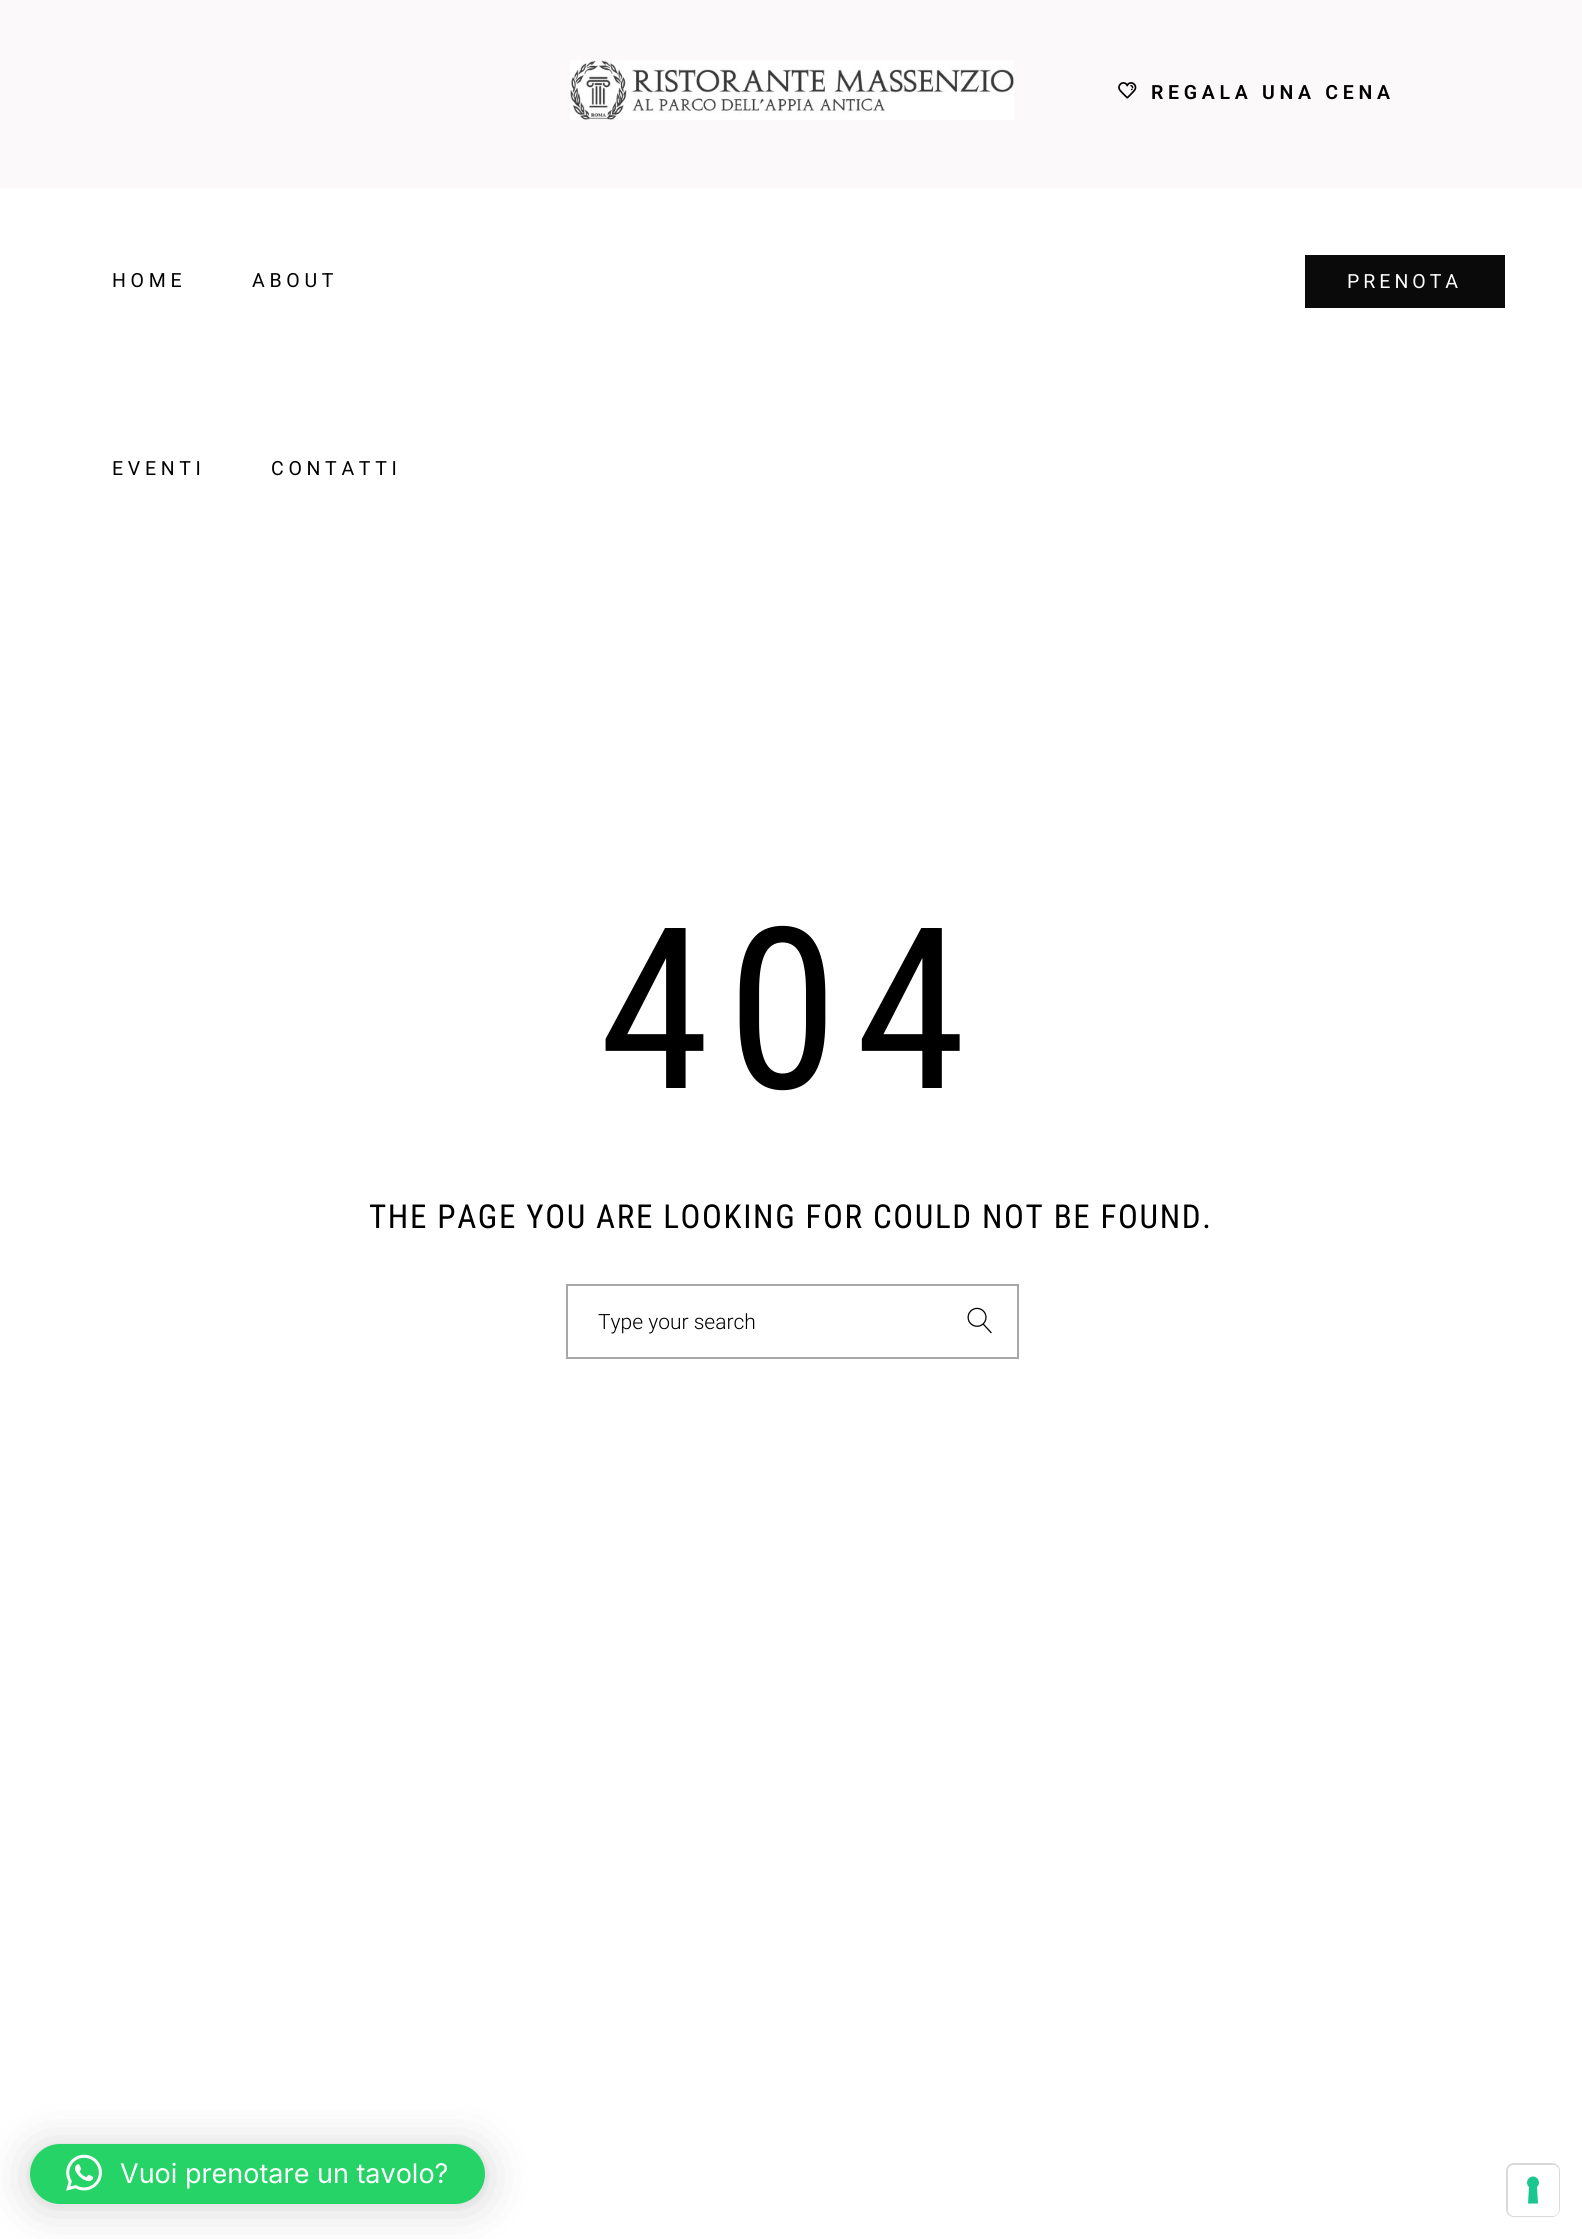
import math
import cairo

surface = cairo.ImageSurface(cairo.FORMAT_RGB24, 1582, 2239)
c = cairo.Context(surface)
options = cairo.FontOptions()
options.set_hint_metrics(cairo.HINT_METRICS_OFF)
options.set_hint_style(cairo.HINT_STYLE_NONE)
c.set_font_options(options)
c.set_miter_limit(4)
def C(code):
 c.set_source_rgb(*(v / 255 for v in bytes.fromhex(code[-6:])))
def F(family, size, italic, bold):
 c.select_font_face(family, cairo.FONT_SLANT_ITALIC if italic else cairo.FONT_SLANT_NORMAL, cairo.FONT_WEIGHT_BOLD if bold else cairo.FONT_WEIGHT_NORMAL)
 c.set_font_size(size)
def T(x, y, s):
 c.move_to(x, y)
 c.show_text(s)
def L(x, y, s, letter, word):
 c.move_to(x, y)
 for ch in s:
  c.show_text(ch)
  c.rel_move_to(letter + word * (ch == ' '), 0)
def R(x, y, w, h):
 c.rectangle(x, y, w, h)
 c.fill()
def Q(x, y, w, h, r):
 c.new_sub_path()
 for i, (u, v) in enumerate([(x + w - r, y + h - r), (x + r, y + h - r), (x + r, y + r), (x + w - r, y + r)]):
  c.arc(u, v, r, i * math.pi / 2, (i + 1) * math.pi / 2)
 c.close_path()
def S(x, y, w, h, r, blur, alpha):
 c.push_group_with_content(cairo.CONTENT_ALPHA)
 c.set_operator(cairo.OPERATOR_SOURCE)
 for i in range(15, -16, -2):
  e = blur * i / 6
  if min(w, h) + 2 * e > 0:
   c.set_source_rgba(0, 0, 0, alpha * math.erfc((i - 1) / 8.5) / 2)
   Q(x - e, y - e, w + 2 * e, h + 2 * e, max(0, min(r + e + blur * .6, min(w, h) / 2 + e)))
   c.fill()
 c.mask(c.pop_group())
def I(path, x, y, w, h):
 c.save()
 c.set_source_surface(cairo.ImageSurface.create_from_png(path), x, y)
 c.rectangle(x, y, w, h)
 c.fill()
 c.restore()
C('ffffff')
c.paint()
C('fbf9f9')
R(0,0,1582,188)
I('1.png',570,60,444,60)
I('2.png',1118,82,19,17)
F('Roboto SemiBold',19.5,0,0)
C('000000')
L(1151,99,'REGALA UNA CENA',4.7,0)
C('0a0a0a')
R(1305,255,200,53)
F('Roboto',19.5,0,0)
C('ffffff')
L(1347,288,'PRENOTA',4,0)
C('000000')
L(112,287,'HOME',4.7,0)
L(252,287,'ABOUT',4.7,0)
L(112,475,'EVENTI',4.7,0)
L(271,475,'CONTATTI',4.7,0)
F('Roboto Condensed',225,0,0)
L(599,1088,'404',17,0)
F('Roboto Condensed',33,0,0)
L(369,1228,'THE PAGE YOU ARE LOOKING FOR COULD NOT BE FOUND.',1.65,0)
c.rectangle(567,1285,451,73)
C('a7a7a7')
c.stroke()
F('Roboto Light',21,0,0)
C('000000')
T(598,1329,'Type your search')
I('3.png',967,1307,25,27)
C('000000')
S(30,2147,455,60,30,24,.16)
S(30,2145,455,60,30,4.5,.06)
C('25d366')
Q(30,2144,455,60,30)
c.fill()
I('4.png',66,2154,36,37)
F('Inter',27,0,0)
C('ffffff')
T(120,2183,'Vuoi prenotare un tavolo?')
Q(1507,2164,52,52,7)
C('d9d9d9')
c.stroke()
C('ffffff')
Q(1508,2165,51,51,6)
c.fill()
C('1cc691')
c.set_fill_rule(cairo.FILL_RULE_EVEN_ODD)
c.new_path()
c.move_to(1533,2176.5)
c.curve_to(1538.5,2176.5,1541,2183.5,1537,2187)
c.line_to(1538,2203.5)
c.line_to(1528,2203.5)
c.line_to(1529,2187)
c.curve_to(1525,2183.5,1527.5,2176.5,1533,2176.5)
c.close_path()
c.fill()
surface.write_to_png('o.png')
